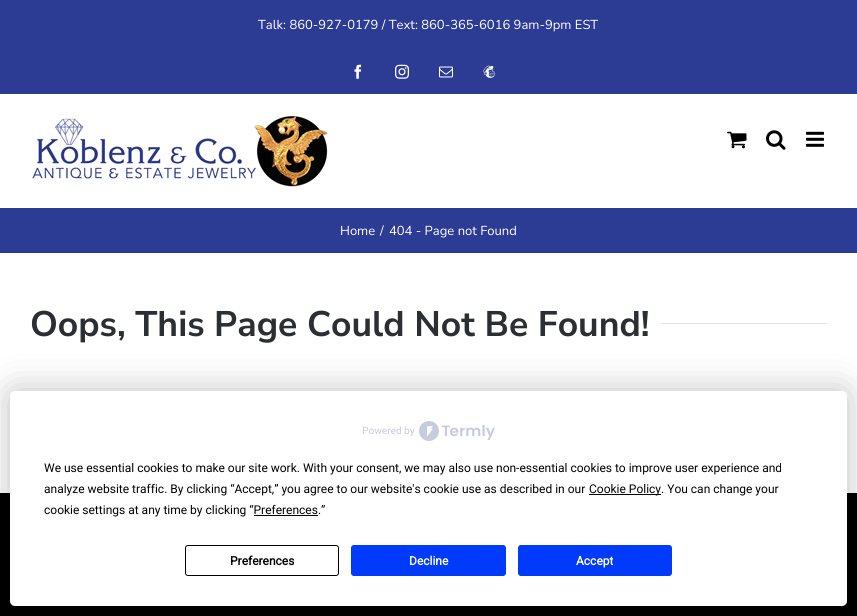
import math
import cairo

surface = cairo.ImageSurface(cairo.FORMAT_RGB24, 857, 616)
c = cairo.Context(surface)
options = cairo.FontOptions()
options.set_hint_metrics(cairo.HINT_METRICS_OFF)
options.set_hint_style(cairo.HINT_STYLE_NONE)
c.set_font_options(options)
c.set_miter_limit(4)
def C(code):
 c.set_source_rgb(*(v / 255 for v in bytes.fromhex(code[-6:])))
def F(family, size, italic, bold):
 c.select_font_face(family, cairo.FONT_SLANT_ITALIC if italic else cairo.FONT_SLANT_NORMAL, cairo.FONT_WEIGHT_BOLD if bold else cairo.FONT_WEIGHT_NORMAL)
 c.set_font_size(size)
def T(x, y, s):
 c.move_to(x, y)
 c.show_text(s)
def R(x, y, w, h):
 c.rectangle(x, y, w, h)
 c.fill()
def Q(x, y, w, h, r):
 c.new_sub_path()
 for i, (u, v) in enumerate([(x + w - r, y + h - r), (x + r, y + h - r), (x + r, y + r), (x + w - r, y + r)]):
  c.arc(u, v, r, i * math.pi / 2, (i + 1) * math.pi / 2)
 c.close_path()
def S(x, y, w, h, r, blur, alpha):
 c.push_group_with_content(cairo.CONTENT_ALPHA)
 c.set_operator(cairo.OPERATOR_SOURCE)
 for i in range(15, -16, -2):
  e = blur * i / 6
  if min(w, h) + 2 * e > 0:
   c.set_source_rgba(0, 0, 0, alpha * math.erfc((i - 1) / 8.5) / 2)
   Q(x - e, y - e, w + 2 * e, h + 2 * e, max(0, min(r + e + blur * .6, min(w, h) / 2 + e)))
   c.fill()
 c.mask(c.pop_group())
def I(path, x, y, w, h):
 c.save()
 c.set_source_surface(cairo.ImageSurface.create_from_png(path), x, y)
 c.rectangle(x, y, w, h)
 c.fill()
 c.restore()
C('ffffff')
c.paint()
C('2c3b94')
R(0,0,857,93)
C('2a3d92')
R(0,93,857,1)
F('Nunito',13,0,0)
C('ffffff')
T(258,29,'Talk: 860-927-0179 / Text: 860-365-6016 9am-9pm EST')
I('1.png',354,64,8,15)
I('2.png',395,64,14,15)
I('3.png',439,66,14,12)
I('4.png',483,65,12,13)
C('2a3d92')
R(0,208,857,1)
I('5.png',32,116,296,71)
I('6.png',727,131,20,18)
I('7.png',766,130,20,20)
I('8.png',806,131,18,16)
C('2c3b94')
R(0,209,857,44)
C('ffffff')
T(340,235,'Home')
T(380,235,'/')
T(389,235,'404 - Page not Found')
F('Nunito Sans',35.5,0,1)
C('2b2e32')
T(30,336,'Oops, This Page Could Not Be Found!')
C('e0dede')
R(661,323,166,1)
C('000000')
R(0,493,857,123)
C('000000')
S(10,391,837,215,5,17.5,.25)
C('ffffff')
Q(10,391,837,215,5)
c.fill()
I('9.png',363,421,132,20)
F('Roboto',12,0,0)
C('000000')
T(44,472,'We use essential cookies to make our site work. With your consent, we may also use non-essential cookies to improve user experience and')
T(44,493,'analyze website traffic. By clicking “Accept,” you agree to our website\'s cookie use as described in our')
R(589,494,72,1)
T(589,493,'Cookie Policy. You can change your')
T(44,514,'cookie settings at any time by clicking “Preferences.”')
R(254,515,64,1)
Q(185.5,545.5,153,30,2.5)
c.set_line_width(1)
c.stroke()
F('Roboto',12,0,1)
T(230,565,'Preferences')
C('003afa')
Q(351.5,545.5,154,30,2.5)
c.fill_preserve()
c.stroke()
C('ffffff')
T(409,565,'Decline')
C('003afa')
Q(518.5,545.5,153,30,2.5)
c.fill_preserve()
c.stroke()
C('ffffff')
T(576,565,'Accept')
surface.write_to_png('o.png')
